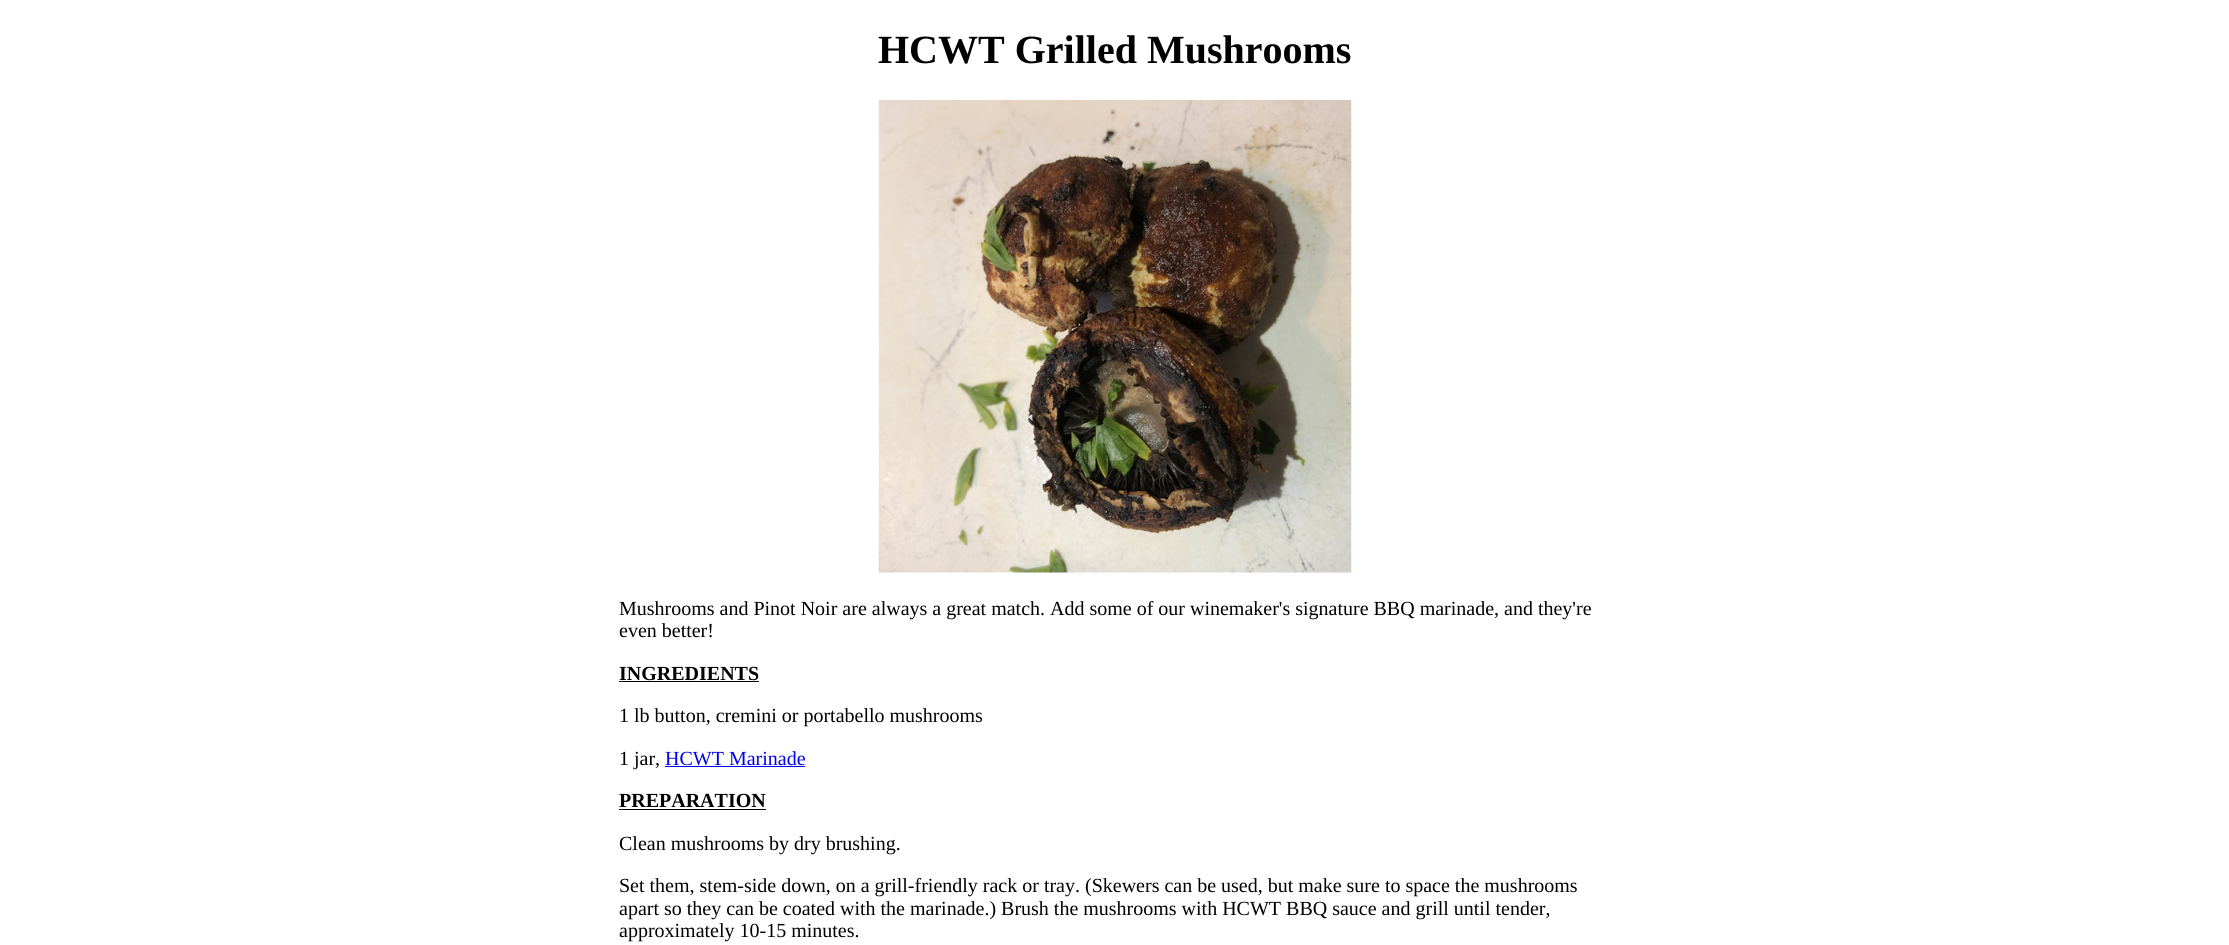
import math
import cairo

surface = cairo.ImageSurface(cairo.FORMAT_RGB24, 2229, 945)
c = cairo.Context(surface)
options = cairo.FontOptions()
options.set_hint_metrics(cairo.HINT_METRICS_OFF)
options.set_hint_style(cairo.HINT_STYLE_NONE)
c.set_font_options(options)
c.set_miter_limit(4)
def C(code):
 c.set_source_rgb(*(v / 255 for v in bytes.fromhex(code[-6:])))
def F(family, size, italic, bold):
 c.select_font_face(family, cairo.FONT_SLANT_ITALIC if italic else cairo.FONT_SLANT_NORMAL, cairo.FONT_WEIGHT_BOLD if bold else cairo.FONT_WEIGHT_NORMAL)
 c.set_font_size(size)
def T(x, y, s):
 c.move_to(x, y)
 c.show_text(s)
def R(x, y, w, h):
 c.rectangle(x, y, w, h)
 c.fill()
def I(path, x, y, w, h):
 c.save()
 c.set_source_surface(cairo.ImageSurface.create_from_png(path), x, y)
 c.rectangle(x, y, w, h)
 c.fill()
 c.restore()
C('ffffff')
c.paint()
F('Liberation Serif',40,0,1)
C('000000')
T(878,63,'HCWT Grilled Mushrooms')
I('1.png',878,100,474,473)
F('Liberation Serif',20,0,0)
T(619,615,'Mushrooms and Pinot Noir are always a great match. Add some of our winemaker\'s signature BBQ marinade, and they\'re')
T(619,637,'even better!')
F('Liberation Serif',20,0,1)
T(619,680,'INGREDIENTS')
R(619,681,140,1)
F('Liberation Serif',20,0,0)
T(619,722,'1 lb button, cremini or portabello mushrooms')
T(619,765,'1 jar,')
C('0000ee')
T(665,765,'HCWT Marinade')
R(665,766,140,1)
F('Liberation Serif',20,0,1)
C('000000')
T(619,807,'PREPARATION')
R(619,809,147,1)
F('Liberation Serif',20,0,0)
T(619,850,'Clean mushrooms by dry brushing.')
T(619,892,'Set them, stem-side down, on a grill-friendly rack or tray. (Skewers can be used, but make sure to space the mushrooms')
T(619,915,'apart so they can be coated with the marinade.) Brush the mushrooms with HCWT BBQ sauce and grill until tender,')
T(619,937,'approximately 10-15 minutes.')
surface.write_to_png('o.png')
